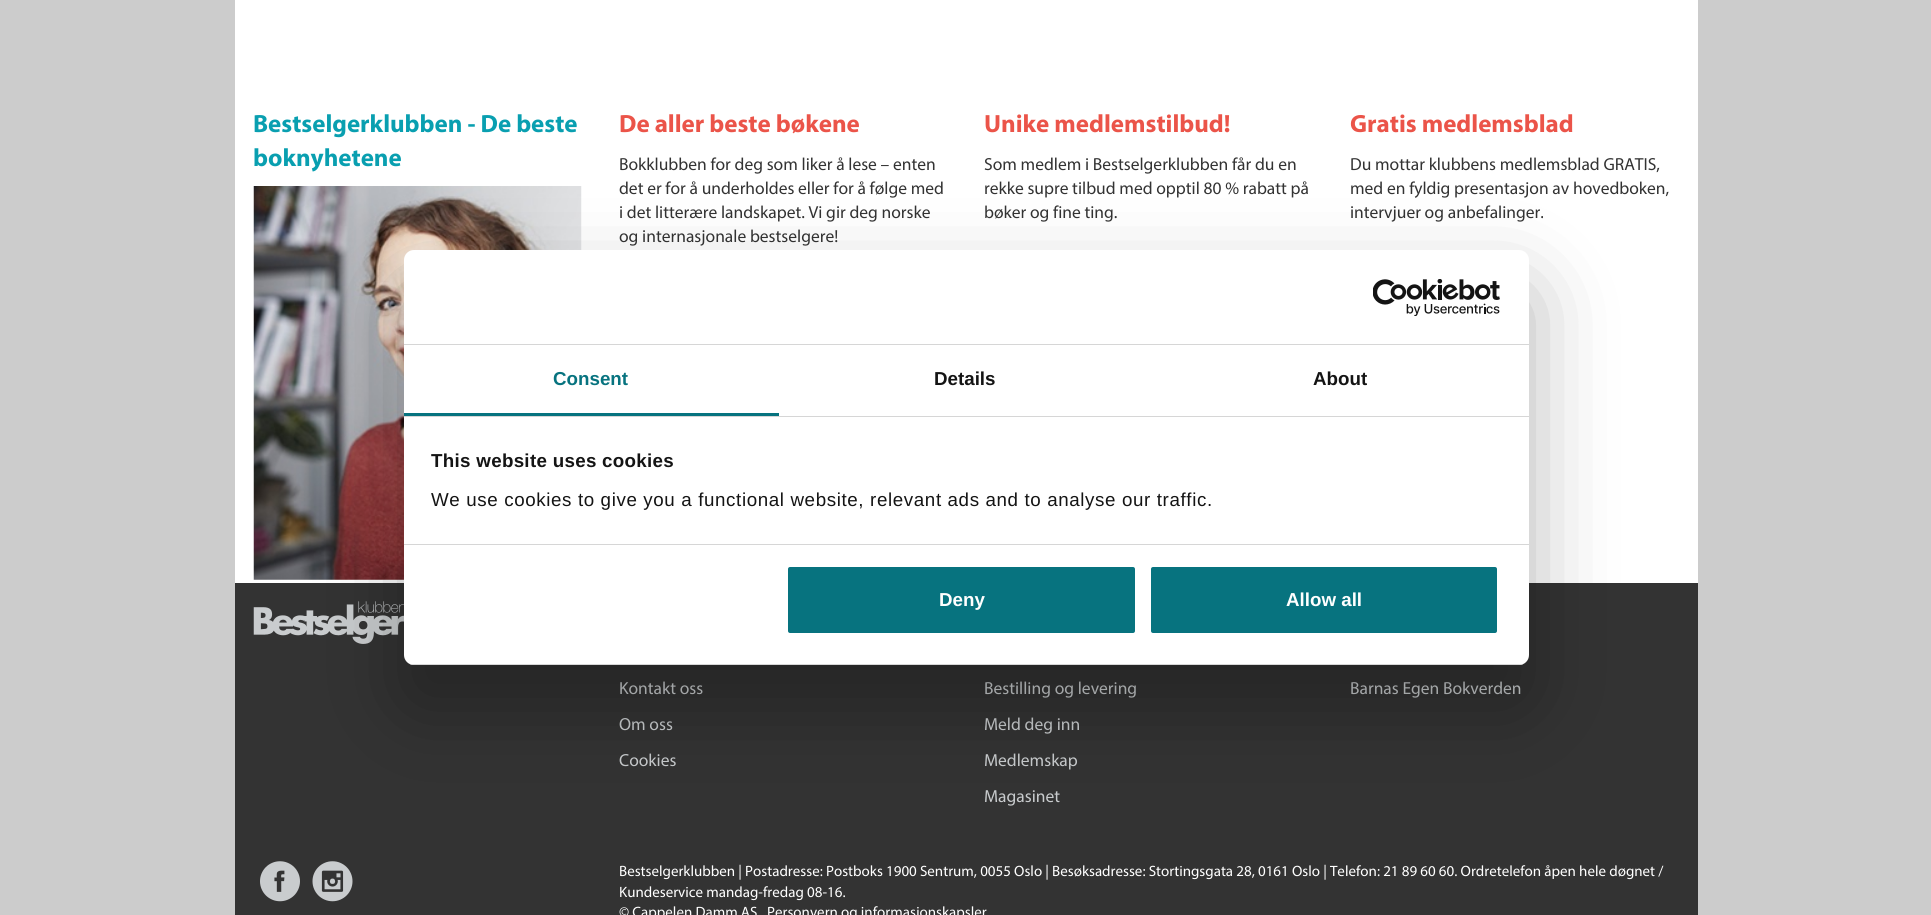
import math
import cairo

surface = cairo.ImageSurface(cairo.FORMAT_RGB24, 1931, 915)
c = cairo.Context(surface)
options = cairo.FontOptions()
options.set_hint_metrics(cairo.HINT_METRICS_OFF)
options.set_hint_style(cairo.HINT_STYLE_NONE)
c.set_font_options(options)
c.set_miter_limit(4)
def C(code):
 c.set_source_rgb(*(v / 255 for v in bytes.fromhex(code[-6:])))
def F(family, size, italic, bold):
 c.select_font_face(family, cairo.FONT_SLANT_ITALIC if italic else cairo.FONT_SLANT_NORMAL, cairo.FONT_WEIGHT_BOLD if bold else cairo.FONT_WEIGHT_NORMAL)
 c.set_font_size(size)
def T(x, y, s):
 c.move_to(x, y)
 c.show_text(s)
def L(x, y, s, letter, word):
 c.move_to(x, y)
 for ch in s:
  c.show_text(ch)
  c.rel_move_to(letter + word * (ch == ' '), 0)
def R(x, y, w, h):
 c.rectangle(x, y, w, h)
 c.fill()
def Q(x, y, w, h, r):
 c.new_sub_path()
 for i, (u, v) in enumerate([(x + w - r, y + h - r), (x + r, y + h - r), (x + r, y + r), (x + w - r, y + r)]):
  c.arc(u, v, r, i * math.pi / 2, (i + 1) * math.pi / 2)
 c.close_path()
def S(x, y, w, h, r, blur, alpha):
 c.push_group_with_content(cairo.CONTENT_ALPHA)
 c.set_operator(cairo.OPERATOR_SOURCE)
 for i in range(15, -16, -2):
  e = blur * i / 6
  if min(w, h) + 2 * e > 0:
   c.set_source_rgba(0, 0, 0, alpha * math.erfc((i - 1) / 8.5) / 2)
   Q(x - e, y - e, w + 2 * e, h + 2 * e, max(0, min(r + e + blur * .6, min(w, h) / 2 + e)))
   c.fill()
 c.mask(c.pop_group())
def I(path, x, y, w, h):
 c.save()
 c.set_source_surface(cairo.ImageSurface.create_from_png(path), x, y)
 c.rectangle(x, y, w, h)
 c.fill()
 c.restore()
C('cccccc')
c.paint()
C('ffffff')
R(235,0,1463,583)
F('Myriad',25,0,1)
C('099fb0')
T(253,132,'Bestselgerklubben - De beste')
T(253,166,'boknyhetene')
I('1.png',253,186,329,394)
C('eb5449')
T(619,132,'De aller beste bøkene')
F('Myriad',17.5,0,0)
C('333333')
T(619,170,'Bokklubben for deg som liker å lese – enten')
T(619,194,'det er for å underholdes eller for å følge med')
T(619,218,'i det litterære landskapet. Vi gir deg norske')
T(619,242,'og internasjonale bestselgere!')
F('Myriad',25,0,1)
C('eb5449')
T(984,132,'Unike medlemstilbud!')
F('Myriad',17.5,0,0)
C('333333')
T(984,170,'Som medlem i Bestselgerklubben får du en')
T(984,194,'rekke supre tilbud med opptil 80 % rabatt på')
T(984,218,'bøker og fine ting.')
F('Myriad',25,0,1)
C('eb5449')
T(1350,132,'Gratis medlemsblad')
F('Myriad',17.5,0,0)
C('333333')
T(1350,170,'Du mottar klubbens medlemsblad GRATIS,')
T(1350,194,'med en fyldig presentasjon av hovedboken,')
T(1350,218,'intervjuer og anbefalinger.')
R(235,583,1463,332)
I('2.png',253,601,151,43)
C('c9ccce')
T(619,694,'Kontakt oss')
T(619,730,'Om oss')
T(619,766,'Cookies')
T(984,694,'Bestilling og levering')
T(984,730,'Meld deg inn')
T(984,766,'Medlemskap')
T(984,802,'Magasinet')
T(1350,694,'Barnas Egen Bokverden')
I('3.png',260,861,40,41)
I('4.png',312,861,41,41)
F('Myriad',15,0,0)
C('ffffff')
T(619,876,'Bestselgerklubben | Postadresse: Postboks 1900 Sentrum, 0055 Oslo | Besøksadresse: Stortingsgata 28, 0161 Oslo | Telefon: 21 89 60 60. Ordretelefon åpen hele døgnet /')
T(619,897,'Kundeservice mandag-fredag 08-16.')
T(619,917,'© Cappelen Damm AS')
T(767,917,'Personvern og informasjonskapsler')
C('000000')
S(404,290,1125,415,10,42.5,.3)
C('ffffff')
Q(404,250,1125,415,10)
c.fill()
C('d6d6d6')
R(404,344,1125,1)
I('5.png',1373,279,127,37)
R(404,416,1125,1)
C('07737f')
R(404,413,375,3)
F('Liberation Sans',18.75,0,1)
T(553,385,'Consent')
C('141414')
T(934,385,'Details')
T(1313,385,'About')
C('d6d6d6')
R(404,544,1125,1)
C('141414')
L(431,467,'This website uses cookies',.3,0)
F('Liberation Sans',18.75,0,0)
L(431,506,'We use cookies to give you a functional website, relevant ads and to analyse our traffic.',.62,0)
c.save()
Q(404,250,1125,415,10)
c.clip()
C('d6d6d6')
R(404,664,1125,1)
c.restore()
C('07737f')
Q(786.5,565.5,350,69,3.5)
c.fill_preserve()
C('ffffff')
c.set_line_width(3)
c.stroke()
F('Liberation Sans',18.75,0,1)
T(939,606,'Deny')
C('07737f')
Q(1149.5,565.5,349,69,3.5)
c.fill_preserve()
C('ffffff')
c.stroke()
T(1286,606,'Allow all')
surface.write_to_png('o.png')
